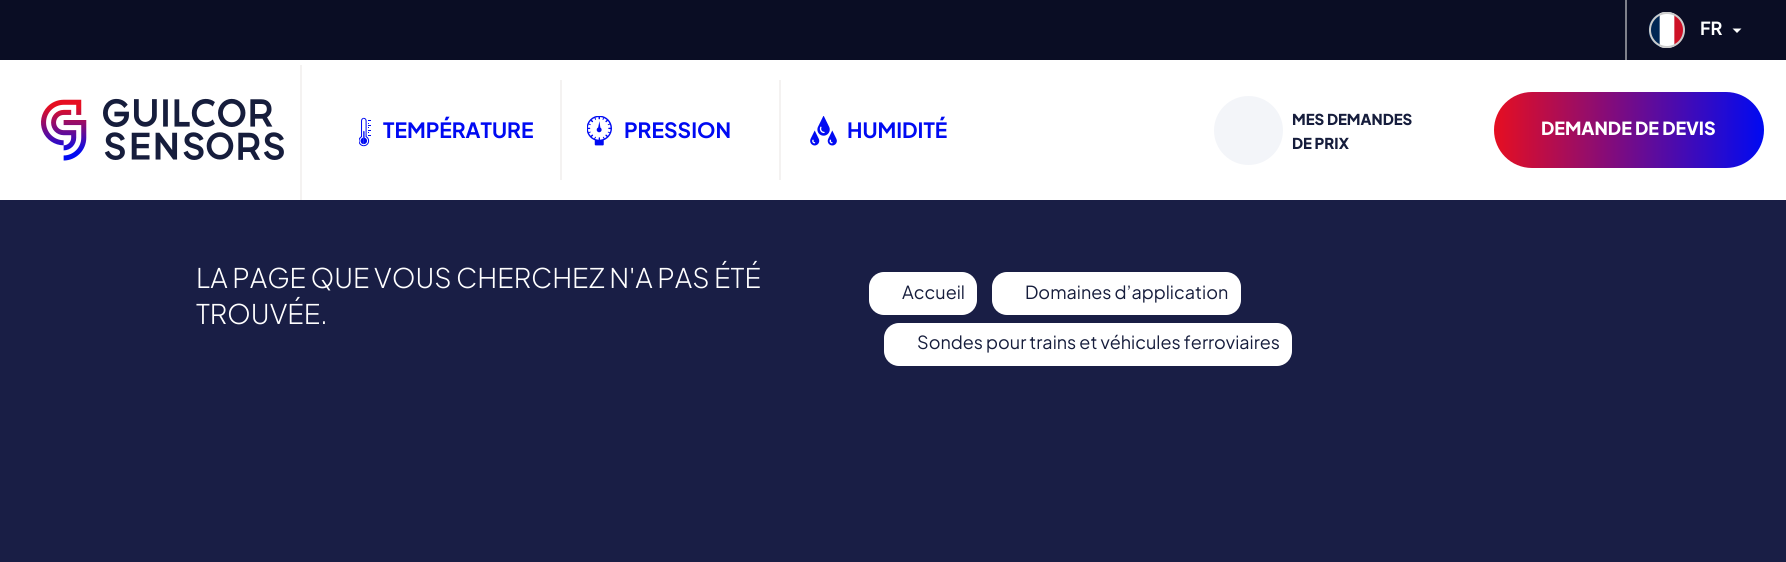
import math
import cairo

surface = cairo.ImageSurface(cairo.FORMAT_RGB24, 1786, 562)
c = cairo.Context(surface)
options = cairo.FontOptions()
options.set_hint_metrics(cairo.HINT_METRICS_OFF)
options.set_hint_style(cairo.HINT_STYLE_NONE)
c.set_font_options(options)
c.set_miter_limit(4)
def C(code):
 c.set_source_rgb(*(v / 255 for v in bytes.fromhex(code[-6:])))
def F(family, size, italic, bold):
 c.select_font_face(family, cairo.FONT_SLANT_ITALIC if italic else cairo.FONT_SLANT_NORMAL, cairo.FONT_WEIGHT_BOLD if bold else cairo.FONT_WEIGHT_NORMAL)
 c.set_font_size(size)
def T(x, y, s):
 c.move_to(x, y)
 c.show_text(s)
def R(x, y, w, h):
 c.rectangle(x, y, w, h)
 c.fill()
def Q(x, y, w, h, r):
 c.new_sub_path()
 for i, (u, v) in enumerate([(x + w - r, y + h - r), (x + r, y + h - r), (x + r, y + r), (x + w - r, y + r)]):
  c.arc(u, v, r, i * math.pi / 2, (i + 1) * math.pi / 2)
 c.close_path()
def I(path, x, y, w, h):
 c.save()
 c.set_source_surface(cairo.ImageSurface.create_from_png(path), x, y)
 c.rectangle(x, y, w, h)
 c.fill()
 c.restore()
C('0a0d24')
c.paint()
C('7f808b')
R(1625,0,2,60)
I('1.png',1648,12,37,36)
c.arc(1667,30,17,0,2 * math.pi)
C('cccccc')
c.stroke()
F('Plus Jakarta Sans',18,0,1)
C('ffffff')
T(1700,35,'FR')
c.new_path()
c.move_to(1732.5,28.5)
c.line_to(1741.5,28.5)
c.line_to(1737,33)
c.close_path()
c.fill()
R(0,60,1786,140)
I('2.png',41,98,243,63)
C('f4f2f1')
R(300,65,2,135)
R(560,80,2,100)
I('3.png',359,117,12,30)
F('Plus Jakarta Sans',21,0,1)
C('000af2')
T(383,138,'TEMPÉRATURE')
C('f4f2f1')
R(779,80,2,100)
I('4.png',587,116,25,30)
C('000af2')
T(624,138,'PRESSION')
I('5.png',810,116,27,30)
T(847,138,'HUMIDITÉ')
C('f3f5f9')
c.new_path()
c.arc(1248.5,130.5,34.5,0,2 * math.pi)
c.fill()
F('Plus Jakarta Sans ExtraBold',15,0,0)
C('161d3c')
T(1292,125,'MES DEMANDES')
T(1292,149,'DE PRIX')
gradient = cairo.LinearGradient(1494,130,1764,130)
gradient.add_color_stop_rgba(0,0.902,0.055,0.129,1)
gradient.add_color_stop_rgba(1,0,0.039,0.949,1)
c.set_source(gradient)
Q(1494,92,270,76,38)
c.fill()
F('Plus Jakarta Sans ExtraBold',18,0,0)
C('ffffff')
T(1541,135,'DEMANDE DE DEVIS')
C('191e45')
R(0,200,1786,362)
F('Plus Jakarta Sans Light',27,0,0)
C('ffffff')
T(196,288,'LA PAGE QUE VOUS CHERCHEZ N\'A PAS ÉTÉ')
T(196,324,'TROUVÉE.')
Q(869,272,108,43,15)
c.fill()
F('Plus Jakarta Sans',18,0,0)
C('161d3c')
T(902,299,'Accueil')
C('ffffff')
Q(992,272,249,43,15)
c.fill()
C('161d3c')
T(1025,299,'Domaines d’application')
C('ffffff')
Q(884,323,408,43,15)
c.fill()
C('161d3c')
T(917,349,'Sondes pour trains et véhicules ferroviaires')
surface.write_to_png('o.png')
